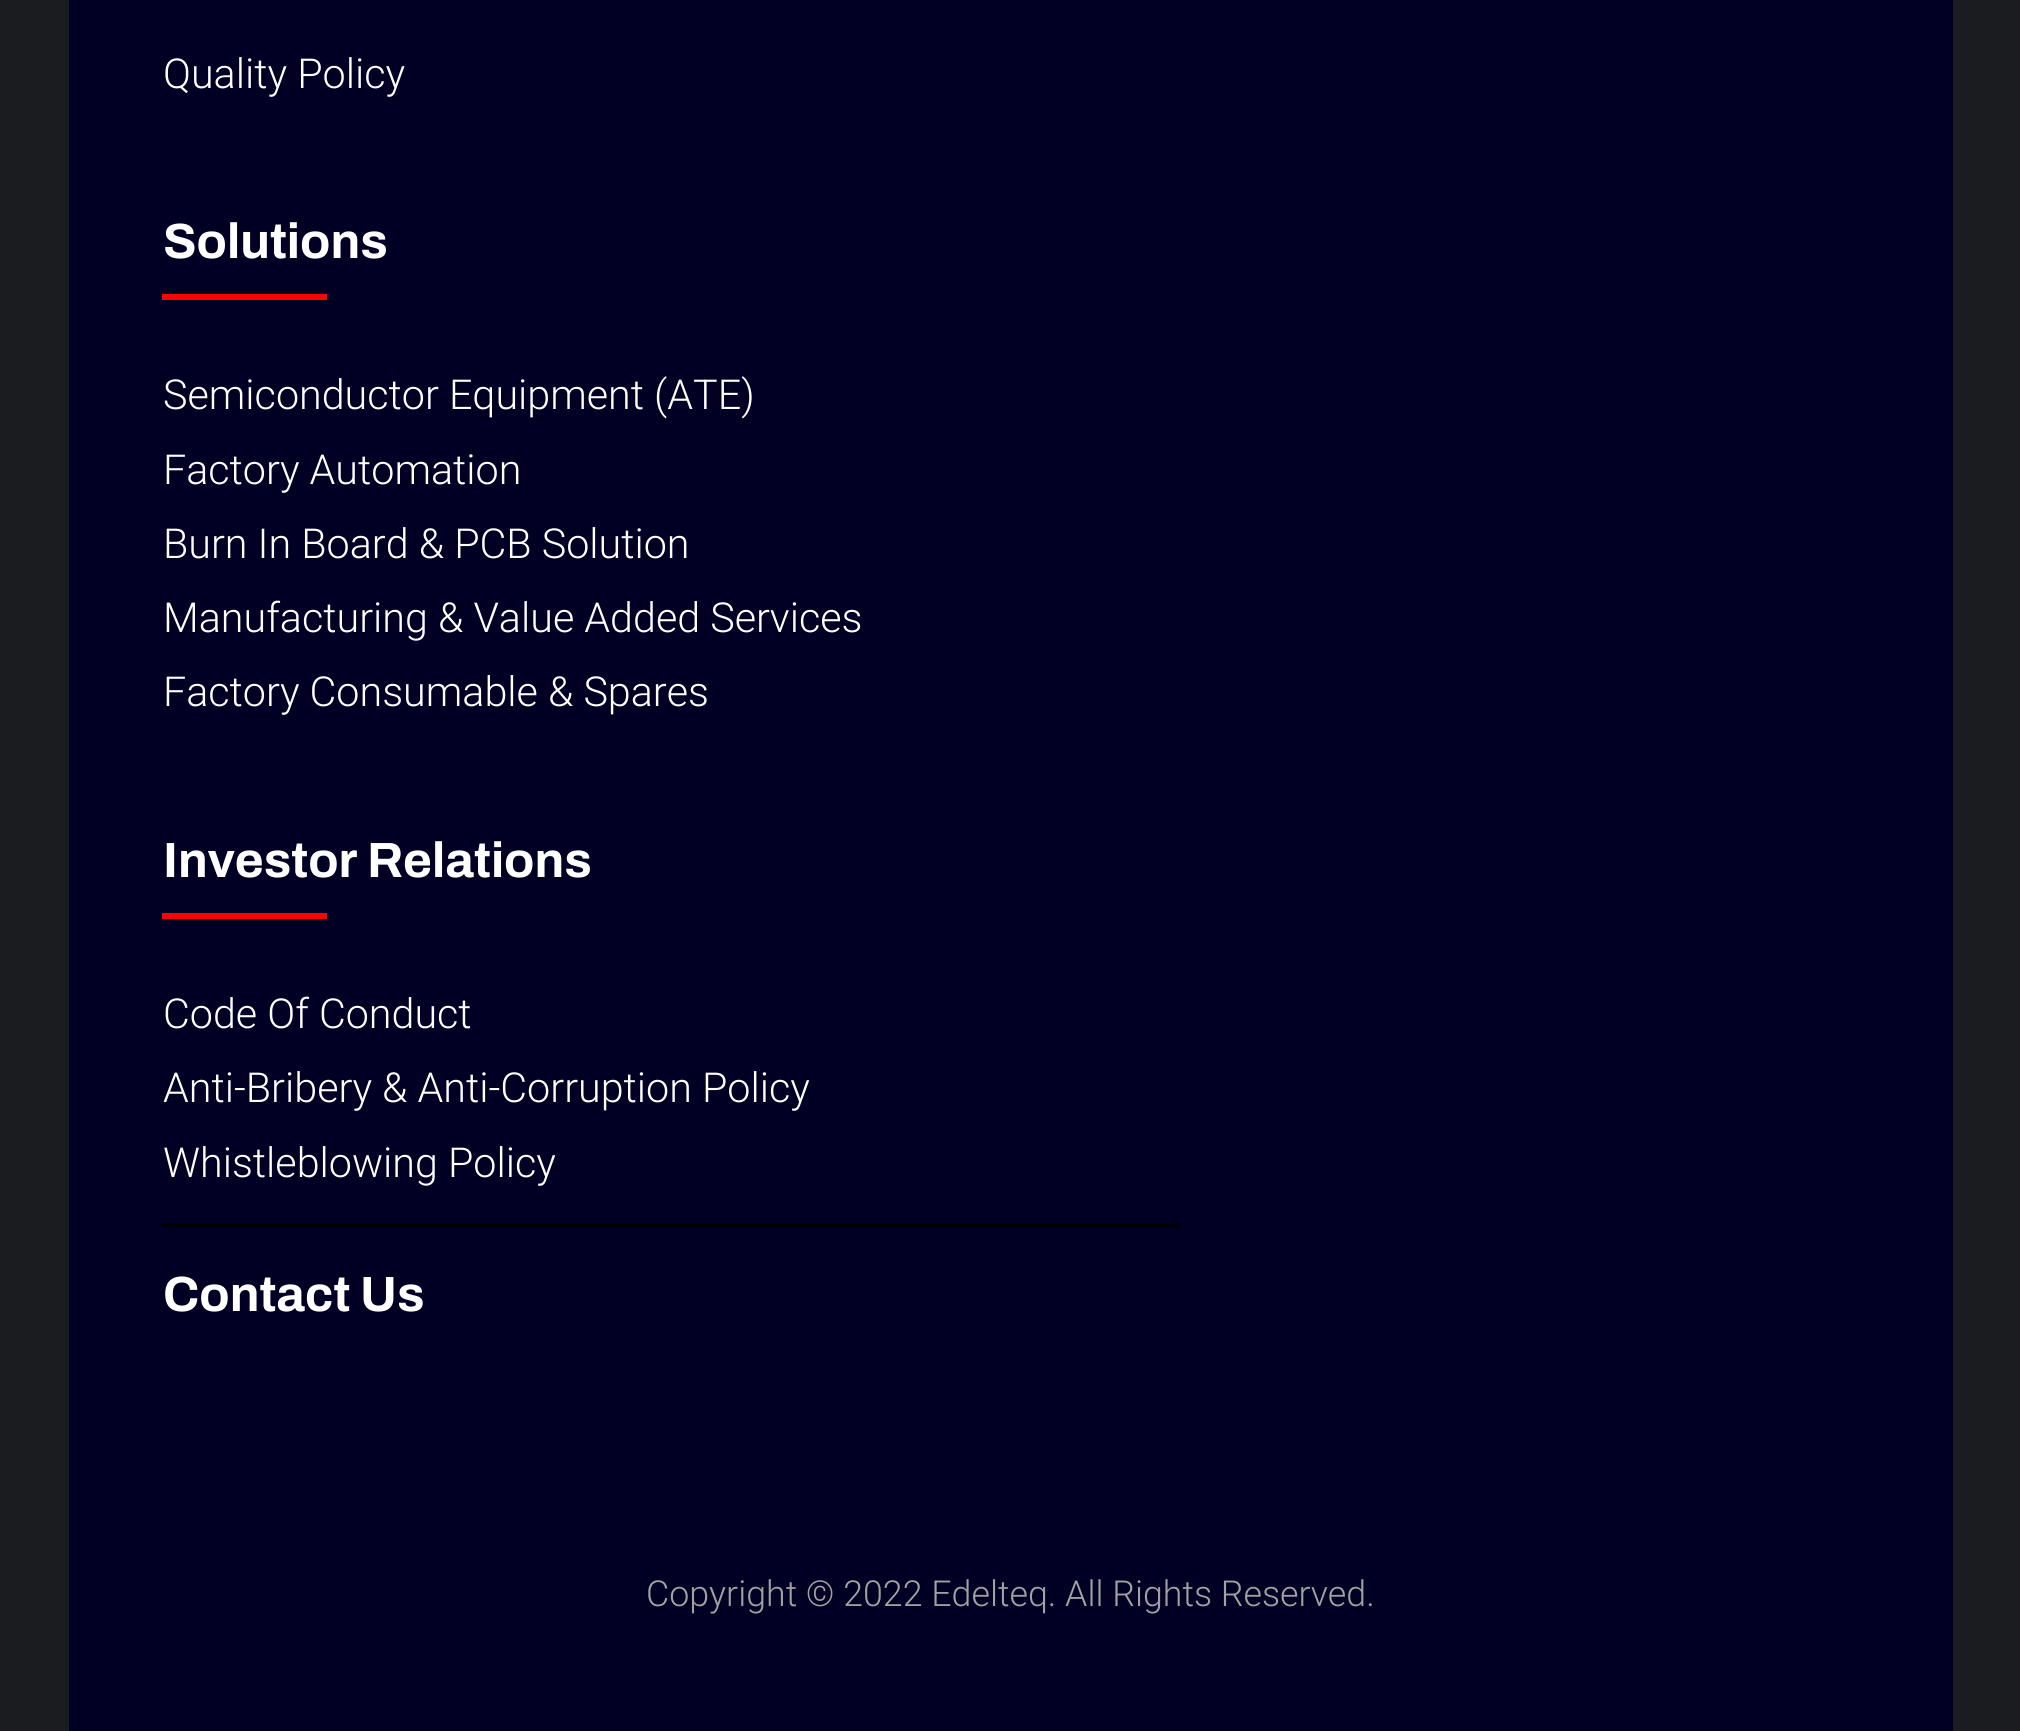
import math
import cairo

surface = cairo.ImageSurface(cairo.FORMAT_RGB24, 2020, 1731)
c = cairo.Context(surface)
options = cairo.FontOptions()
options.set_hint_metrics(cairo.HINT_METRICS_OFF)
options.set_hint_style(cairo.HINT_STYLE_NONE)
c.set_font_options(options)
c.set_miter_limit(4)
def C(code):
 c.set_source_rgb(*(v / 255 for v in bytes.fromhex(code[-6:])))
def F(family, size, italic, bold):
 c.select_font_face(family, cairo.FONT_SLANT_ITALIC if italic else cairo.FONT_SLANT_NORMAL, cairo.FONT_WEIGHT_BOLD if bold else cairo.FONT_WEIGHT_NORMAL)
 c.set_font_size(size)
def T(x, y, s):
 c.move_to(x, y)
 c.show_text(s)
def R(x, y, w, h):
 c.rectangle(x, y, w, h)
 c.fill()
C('1a1c20')
c.paint()
C('010024')
R(69,0,1884,1731)
F('Roboto Light',41.25,0,0)
C('ffffff')
T(163,88,'Quality Policy')
F('Archivo',49.5,0,1)
T(163,258,'Solutions')
C('ff0101')
R(162,294,165,6)
F('Roboto Light',41.25,0,0)
C('ffffff')
T(163,409,'Semiconductor Equipment (ATE)')
T(163,484,'Factory Automation')
T(163,558,'Burn In Board & PCB Solution')
T(163,632,'Manufacturing & Value Added Services')
T(163,706,'Factory Consumable & Spares')
F('Archivo',49.5,0,1)
T(163,877,'Investor Relations')
C('ff0101')
R(162,913,165,6)
F('Roboto Light',41.25,0,0)
C('ffffff')
T(163,1028,'Code Of Conduct')
T(163,1102,'Anti-Bribery & Anti-Corruption Policy')
T(163,1177,'Whistleblowing Policy')
C('000000')
R(162,1224,1018,3)
F('Archivo',49.5,0,1)
C('ffffff')
T(163,1311,'Contact Us')
F('Roboto Light',35.75,0,0)
C('a2a2a2')
T(646,1606,'Copyright © 2022 Edelteq. All Rights Reserved.')
surface.write_to_png('o.png')
